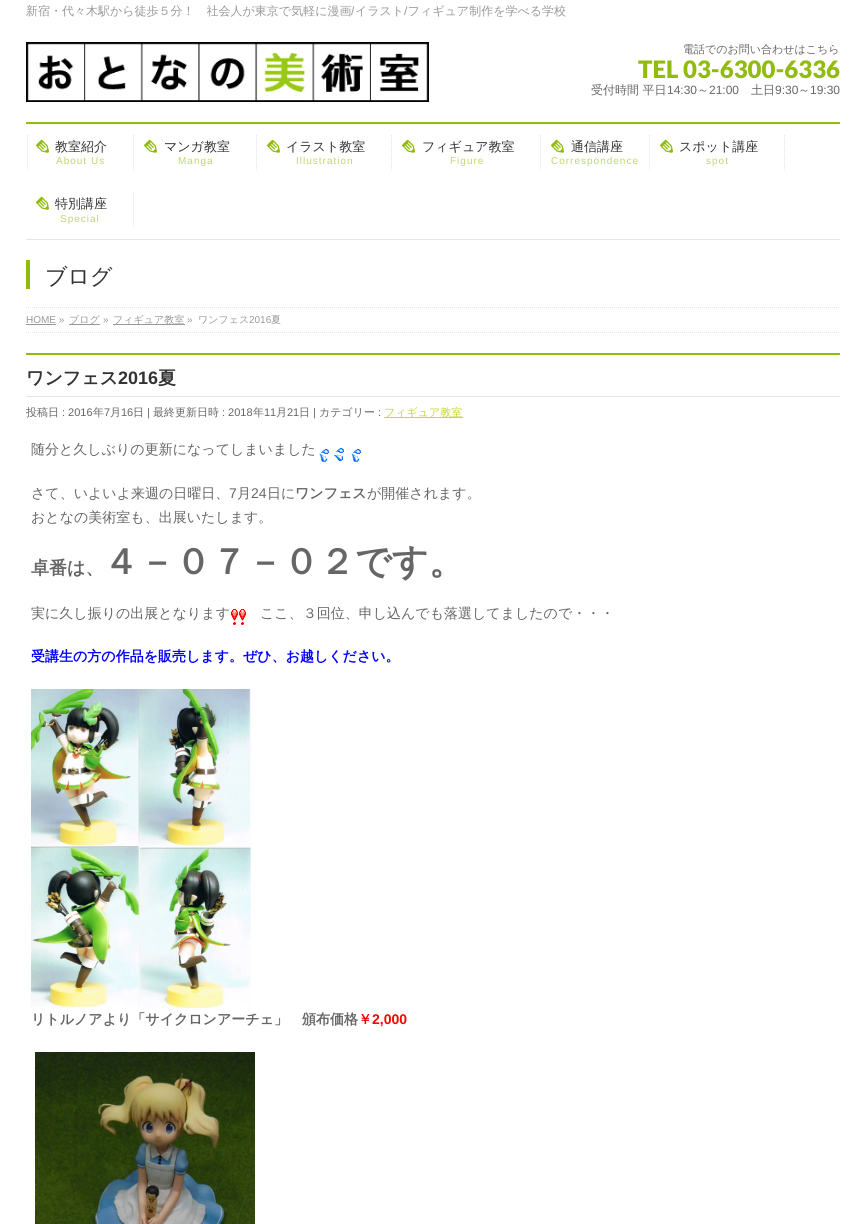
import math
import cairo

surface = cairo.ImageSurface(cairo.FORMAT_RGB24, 866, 1224)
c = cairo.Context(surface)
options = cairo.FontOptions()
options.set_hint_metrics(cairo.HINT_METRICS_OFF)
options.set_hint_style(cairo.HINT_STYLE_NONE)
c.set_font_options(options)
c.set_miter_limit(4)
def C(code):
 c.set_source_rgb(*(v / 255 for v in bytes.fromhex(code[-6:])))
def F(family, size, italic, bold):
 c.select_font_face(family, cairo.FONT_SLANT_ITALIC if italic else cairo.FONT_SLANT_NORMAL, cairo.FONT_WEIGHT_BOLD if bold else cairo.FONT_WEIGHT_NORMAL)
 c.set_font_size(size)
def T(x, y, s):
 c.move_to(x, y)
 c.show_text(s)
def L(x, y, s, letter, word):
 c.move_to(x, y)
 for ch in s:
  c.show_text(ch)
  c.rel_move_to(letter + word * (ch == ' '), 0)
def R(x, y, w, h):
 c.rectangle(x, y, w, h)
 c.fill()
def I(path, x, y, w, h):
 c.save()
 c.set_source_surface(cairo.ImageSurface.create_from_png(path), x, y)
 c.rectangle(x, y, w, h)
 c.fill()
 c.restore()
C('ffffff')
c.paint()
F('WenQuanYi Zen Hei Medium',12,0,0)
C('999999')
T(26,15,'新宿・代々木駅から徒歩５分！　社会人が東京で気軽に漫画 イラスト フィギュア制作を学べる学校')
F('Liberation Sans',12,0,0)
T(351,15,'/')
T(404,15,'/')
I('1.png',26,42,403,60)
F('WenQuanYi Zen Hei Medium',11,0,0)
C('666666')
T(683,53,'電話でのお問い合わせはこちら')
F('Lato Black',24,0,0)
C('91bc0f')
T(638,78,'TEL 03-6300-6336')
F('WenQuanYi Zen Hei Medium',12,0,0)
C('666666')
T(591,94,'受付時間 平日')
F('Liberation Sans',12,0,0)
T(667,94,'14:30')
F('WenQuanYi Zen Hei Medium',12,0,0)
T(697,94,'～')
F('Liberation Sans',12,0,0)
T(709,94,'21:00')
F('WenQuanYi Zen Hei Medium',12,0,0)
T(751,94,'土日')
F('Liberation Sans',12,0,0)
T(775,94,'9:30')
F('WenQuanYi Zen Hei Medium',12,0,0)
T(798,94,'～')
F('Liberation Sans',12,0,0)
T(810,94,'19:30')
C('91bc0f')
R(26,122,814,2)
C('e5e5e5')
R(26,239,814,1)
c.new_path()
c.move_to(27.5,135)
c.line_to(27.5,170)
c.set_line_width(1)
c.set_dash([1,1])
c.stroke()
I('2.png',36,139,13,14)
F('WenQuanYi Zen Hei Medium',13,0,0)
C('333333')
T(55,151,'教室紹介')
F('Liberation Sans',10,0,0)
C('bdd76f')
L(56,164,'About Us',1,0)
c.new_path()
c.move_to(133.5,135)
c.line_to(133.5,170)
C('e5e5e5')
c.stroke()
I('2.png',144,139,13,14)
F('WenQuanYi Zen Hei Medium',13,0,0)
C('333333')
T(164,151,'マンガ教室')
F('Liberation Sans',10,0,0)
C('bdd76f')
L(178,164,'Manga',1,0)
c.new_path()
c.move_to(256.5,135)
c.line_to(256.5,170)
C('e5e5e5')
c.stroke()
I('2.png',267,139,13,14)
F('WenQuanYi Zen Hei Medium',13,0,0)
C('333333')
T(286,151,'イラスト教室')
F('Liberation Sans',10,0,0)
C('bdd76f')
L(296,164,'Illustration',1,0)
c.new_path()
c.move_to(391.5,135)
c.line_to(391.5,170)
C('e5e5e5')
c.stroke()
I('2.png',402,139,13,14)
F('WenQuanYi Zen Hei Medium',13,0,0)
C('333333')
T(422,151,'フィギュア教室')
F('Liberation Sans',10,0,0)
C('bdd76f')
L(450,164,'Figure',1,0)
c.new_path()
c.move_to(540.5,135)
c.line_to(540.5,170)
C('e5e5e5')
c.stroke()
I('2.png',551,139,13,14)
F('WenQuanYi Zen Hei Medium',13,0,0)
C('333333')
T(571,151,'通信講座')
F('Liberation Sans',10,0,0)
C('bdd76f')
L(551,164,'Correspondence',1,0)
c.new_path()
c.move_to(649.5,135)
c.line_to(649.5,170)
C('e5e5e5')
c.stroke()
I('2.png',660,139,13,14)
F('WenQuanYi Zen Hei Medium',13,0,0)
C('333333')
T(679,151,'スポット講座')
F('Liberation Sans',10,0,0)
C('bdd76f')
L(706,164,'spot',1,0)
c.new_path()
c.move_to(784.5,135)
c.line_to(784.5,170)
C('e5e5e5')
c.stroke()
I('2.png',36,196,13,14)
F('WenQuanYi Zen Hei Medium',13,0,0)
C('333333')
T(55,208,'特別講座')
F('Liberation Sans',10,0,0)
C('bdd76f')
L(60,222,'Special',1,0)
c.new_path()
c.move_to(133.5,193)
c.line_to(133.5,227)
C('e5e5e5')
c.stroke()
C('91bc0f')
R(26,260,4,29)
F('WenQuanYi Zen Hei Medium',22,0,0)
C('333333')
T(45,284,'ブログ')
c.new_path()
c.move_to(26,307.5)
c.line_to(840,307.5)
C('e5e5e5')
c.stroke()
c.new_path()
c.move_to(26,332.5)
c.line_to(840,332.5)
c.stroke()
F('Liberation Sans',10,0,0)
C('999999')
T(26,323,'HOME »')
R(26,324,30,1)
R(69,324,31,1)
F('WenQuanYi Zen Hei Medium',10,0,0)
T(69,323,'ブログ')
F('Liberation Sans',10,0,0)
T(103,323,'»')
R(113,324,72,1)
F('WenQuanYi Zen Hei Medium',10,0,0)
T(113,323,'フィギュア教室')
F('Liberation Sans',10,0,0)
T(187,323,'»')
F('WenQuanYi Zen Hei Medium',10,0,0)
T(198,323,'ワンフェス')
F('Liberation Sans',10,0,0)
T(249,323,'2016')
F('WenQuanYi Zen Hei Medium',10,0,0)
T(271,323,'夏')
C('91bc0f')
R(26,353,814,2)
C('e5e5e5')
R(26,396,814,1)
F('WenQuanYi Zen Hei',18,0,1)
C('333333')
T(26,384,'ワンフェス')
F('Liberation Sans',18,0,1)
T(118,384,'2016')
F('WenQuanYi Zen Hei',18,0,1)
T(158,384,'夏')
F('WenQuanYi Zen Hei Medium',11,0,0)
C('666666')
T(26,416,'投稿日')
F('Liberation Sans',11,0,0)
T(62,416,': 2016')
F('WenQuanYi Zen Hei Medium',11,0,0)
T(93,416,'年')
F('Liberation Sans',11,0,0)
T(104,416,'7')
F('WenQuanYi Zen Hei Medium',11,0,0)
T(110,416,'月')
F('Liberation Sans',11,0,0)
T(121,416,'16')
F('WenQuanYi Zen Hei Medium',11,0,0)
T(133,416,'日')
F('Liberation Sans',11,0,0)
T(147,416,'|')
F('WenQuanYi Zen Hei Medium',11,0,0)
T(153,416,'最終更新日時')
F('Liberation Sans',11,0,0)
T(222,416,': 2018')
F('WenQuanYi Zen Hei Medium',11,0,0)
T(253,416,'年')
F('Liberation Sans',11,0,0)
T(264,416,'11')
F('WenQuanYi Zen Hei Medium',11,0,0)
T(276,416,'月')
F('Liberation Sans',11,0,0)
T(287,416,'21')
F('WenQuanYi Zen Hei Medium',11,0,0)
T(299,416,'日')
F('Liberation Sans',11,0,0)
T(313,416,'|')
F('WenQuanYi Zen Hei Medium',11,0,0)
T(319,416,'カテゴリー')
F('Liberation Sans',11,0,0)
T(378,416,':')
C('c5d82f')
R(384,417,79,1)
F('WenQuanYi Zen Hei Medium',11,0,0)
T(384,416,'フィギュア教室')
F('WenQuanYi Zen Hei Medium',14,0,0)
C('666666')
T(31,454,'随分と久しぶりの更新になってしまいました')
I('3.png',319,449,10,13)
I('4.png',334,448,10,13)
I('3.png',351,449,10,13)
T(31,498,'さて、いよいよ来週の日曜日、')
F('Liberation Sans',14,0,0)
T(229,498,'7')
F('WenQuanYi Zen Hei Medium',14,0,0)
T(237,498,'月')
F('Liberation Sans',14,0,0)
T(251,498,'24')
F('WenQuanYi Zen Hei Medium',14,0,0)
T(267,498,'日に')
F('WenQuanYi Zen Hei',14,0,1)
T(295,498,'ワンフェス')
F('WenQuanYi Zen Hei Medium',14,0,0)
T(367,498,'が開催されます。')
T(31,522,'おとなの美術室も、出展いたします。')
F('WenQuanYi Zen Hei',18,0,1)
T(31,574,'卓番は、')
F('WenQuanYi Zen Hei',36,0,1)
T(103,574,'４－０７－０２です。')
F('WenQuanYi Zen Hei Medium',14,0,0)
T(31,618,'実に久し振りの出展となります')
I('5.png',231,609,15,16)
T(260,618,'ここ、３回位、申し込んでも落選してましたので・・・')
F('WenQuanYi Zen Hei',14,0,1)
C('0000ff')
T(31,661,'受講生の方の作品を販売します。ぜひ、お越しください。')
I('6.png',31,689,220,319)
C('666666')
T(31,1024,'リトルノアより「サイクロンアーチェ」　頒布価格')
C('ff0000')
T(358,1024,'￥')
F('Liberation Sans',14,0,1)
T(372,1024,'2,000')
I('7.png',35,1052,220,172)
surface.write_to_png('o.png')
